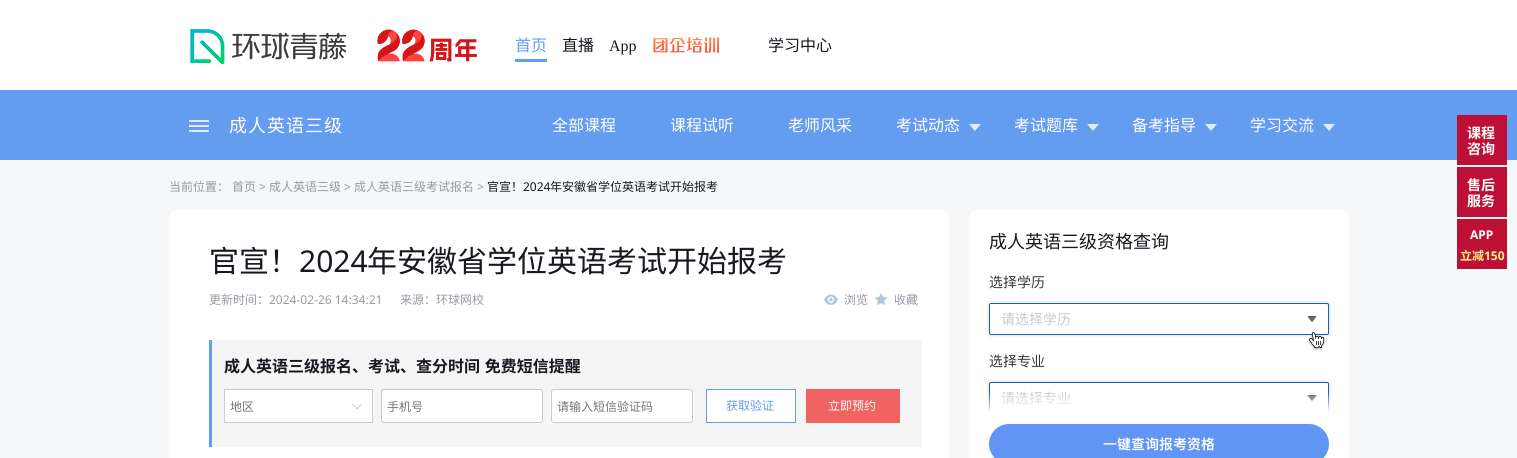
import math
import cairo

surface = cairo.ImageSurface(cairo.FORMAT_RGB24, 1517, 458)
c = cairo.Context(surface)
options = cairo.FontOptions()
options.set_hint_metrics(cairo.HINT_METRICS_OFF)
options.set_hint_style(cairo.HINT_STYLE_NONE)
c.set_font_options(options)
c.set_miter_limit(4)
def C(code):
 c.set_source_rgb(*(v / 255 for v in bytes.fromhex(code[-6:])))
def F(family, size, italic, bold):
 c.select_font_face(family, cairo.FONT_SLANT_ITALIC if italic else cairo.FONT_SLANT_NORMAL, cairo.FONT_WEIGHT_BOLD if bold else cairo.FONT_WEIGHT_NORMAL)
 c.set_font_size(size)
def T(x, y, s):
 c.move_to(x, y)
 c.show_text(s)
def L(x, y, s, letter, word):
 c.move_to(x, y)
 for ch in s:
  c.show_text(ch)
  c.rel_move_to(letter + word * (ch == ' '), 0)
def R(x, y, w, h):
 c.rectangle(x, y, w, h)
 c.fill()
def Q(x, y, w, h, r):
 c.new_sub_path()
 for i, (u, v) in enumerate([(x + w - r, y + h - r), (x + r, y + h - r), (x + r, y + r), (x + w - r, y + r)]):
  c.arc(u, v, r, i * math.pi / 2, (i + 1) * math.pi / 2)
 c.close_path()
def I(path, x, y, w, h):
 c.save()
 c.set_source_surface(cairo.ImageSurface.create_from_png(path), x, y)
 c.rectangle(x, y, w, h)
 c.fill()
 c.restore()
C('f5f7f9')
c.paint()
C('ffffff')
R(0,0,1517,90)
I('1.png',190,29,156,35)
I('2.png',377,29,100,33)
C('649cf0')
R(515,59,32,3)
F('Noto Sans CJK SC',16,0,0)
T(515,51,'首页')
C('171920')
T(562,51,'直播')
F('Liberation Serif',16,0,0)
T(609,51,'App')
I('3.png',653,37,67,16)
F('Noto Sans CJK SC',16,0,0)
T(768,51,'学习中心')
C('649cf0')
R(0,90,1517,70)
I('4.png',189,120,20,12)
F('Noto Sans CJK SC',18,0,0)
C('ffffff')
L(229,132,'成人英语三级',1,0)
F('Noto Sans CJK SC',16,0,0)
T(552,131,'全部课程')
T(670,131,'课程试听')
T(788,131,'老师风采')
T(896,131,'考试动态')
I('5.png',969,124,12,7)
T(1014,131,'考试题库')
I('5.png',1087,124,12,7)
T(1132,131,'备考指导')
I('5.png',1205,124,12,7)
T(1250,131,'学习交流')
I('5.png',1323,124,12,7)
C('be0f34')
R(1457,115,50,50)
F('Noto Sans CJK SC',14,0,1)
C('ffffff')
T(1467,138,'课程')
T(1467,154,'咨询')
C('be0f34')
R(1457,167,50,50)
C('ffffff')
T(1467,190,'售后')
T(1467,206,'服务')
C('be0f34')
R(1457,219,50,50)
F('Noto Sans',12,0,1)
C('ffffff')
T(1470,239,'APP')
F('Noto Sans CJK SC',12,0,1)
C('f9f186')
T(1460,260,'立减')
F('Noto Sans',12,0,1)
T(1484,260,'150')
F('Noto Sans CJK SC',12,0,0)
C('979aa4')
T(169,191,'当前位置：')
T(232,191,'首页')
F('Noto Sans',12,0,0)
T(259,191,'>')
F('Noto Sans CJK SC',12,0,0)
T(269,191,'成人英语三级')
F('Noto Sans',12,0,0)
T(344,191,'>')
F('Noto Sans CJK SC',12,0,0)
T(354,191,'成人英语三级考试报名')
F('Noto Sans',12,0,0)
T(477,191,'>')
F('Noto Sans CJK SC',12,0,0)
C('171920')
T(487,191,'官宣！')
F('Noto Sans',12,0,0)
T(523,191,'2024')
F('Noto Sans CJK SC',12,0,0)
T(550,191,'年安徽省学位英语考试开始报考')
C('ffffff')
Q(969,210,380,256,8)
c.fill()
F('Noto Sans CJK SC',18,0,0)
C('171920')
T(989,248,'成人英语三级资格查询')
I('6.png',987,275,344,183)
C('ffffff')
Q(169,210,780,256,8)
c.fill()
F('Noto Sans CJK SC',30,0,0)
C('171920')
T(209,272,'官宣！')
F('Noto Sans',30,0,0)
T(299,272,'2024')
F('Noto Sans CJK SC',30,0,0)
T(367,272,'年安徽省学位英语考试开始报考')
F('Noto Sans CJK SC',12,0,0)
C('979aa4')
T(209,304,'更新时间：')
F('Noto Sans',12,0,0)
T(269,304,'2024-02-26 14:34:21')
F('Noto Sans CJK SC',12,0,0)
T(400,304,'来源：环球网校')
I('7.png',824,294,14,11)
T(844,304,'浏览')
I('8.png',875,293,12,12)
T(894,304,'收藏')
C('f5f5f5')
R(212,340,710,107)
C('649cf0')
R(209,340,3,107)
F('Noto Sans CJK SC',16,0,1)
C('171920')
L(224,372,'成人英语三级报名、考试、查分时间 免费短信提醒',0,1)
C('ffffff')
c.rectangle(224.5,389.5,148,33)
c.fill_preserve()
C('cccccc')
c.set_line_width(1)
c.stroke()
F('Noto Sans CJK SC',12,0,0)
C('757575')
T(230,411,'地区')
C('cccccc')
c.new_path()
c.move_to(361,404)
c.line_to(362,404.5)
c.line_to(357,409.5)
c.line_to(356.5,408.5)
c.close_path()
c.fill()
c.new_path()
c.move_to(353,404)
c.line_to(357.5,408.5)
c.line_to(357,409.5)
c.line_to(352,404.5)
c.close_path()
c.fill()
C('ffffff')
Q(381.5,389.5,161,33,2.5)
c.fill_preserve()
C('cccccc')
c.stroke()
C('757575')
T(387,411,'手机号')
C('ffffff')
Q(551.5,389.5,141,33,2.5)
c.fill_preserve()
C('cccccc')
c.stroke()
C('757575')
T(557,411,'请输入短信验证码')
C('ffffff')
c.rectangle(706.5,389.5,89,33)
c.fill_preserve()
C('649cf0')
c.stroke()
T(726,410,'获取验证')
C('f16262')
R(806,389,94,34)
C('ffffff')
T(828,410,'立即预约')
surface.write_to_png('o.png')
